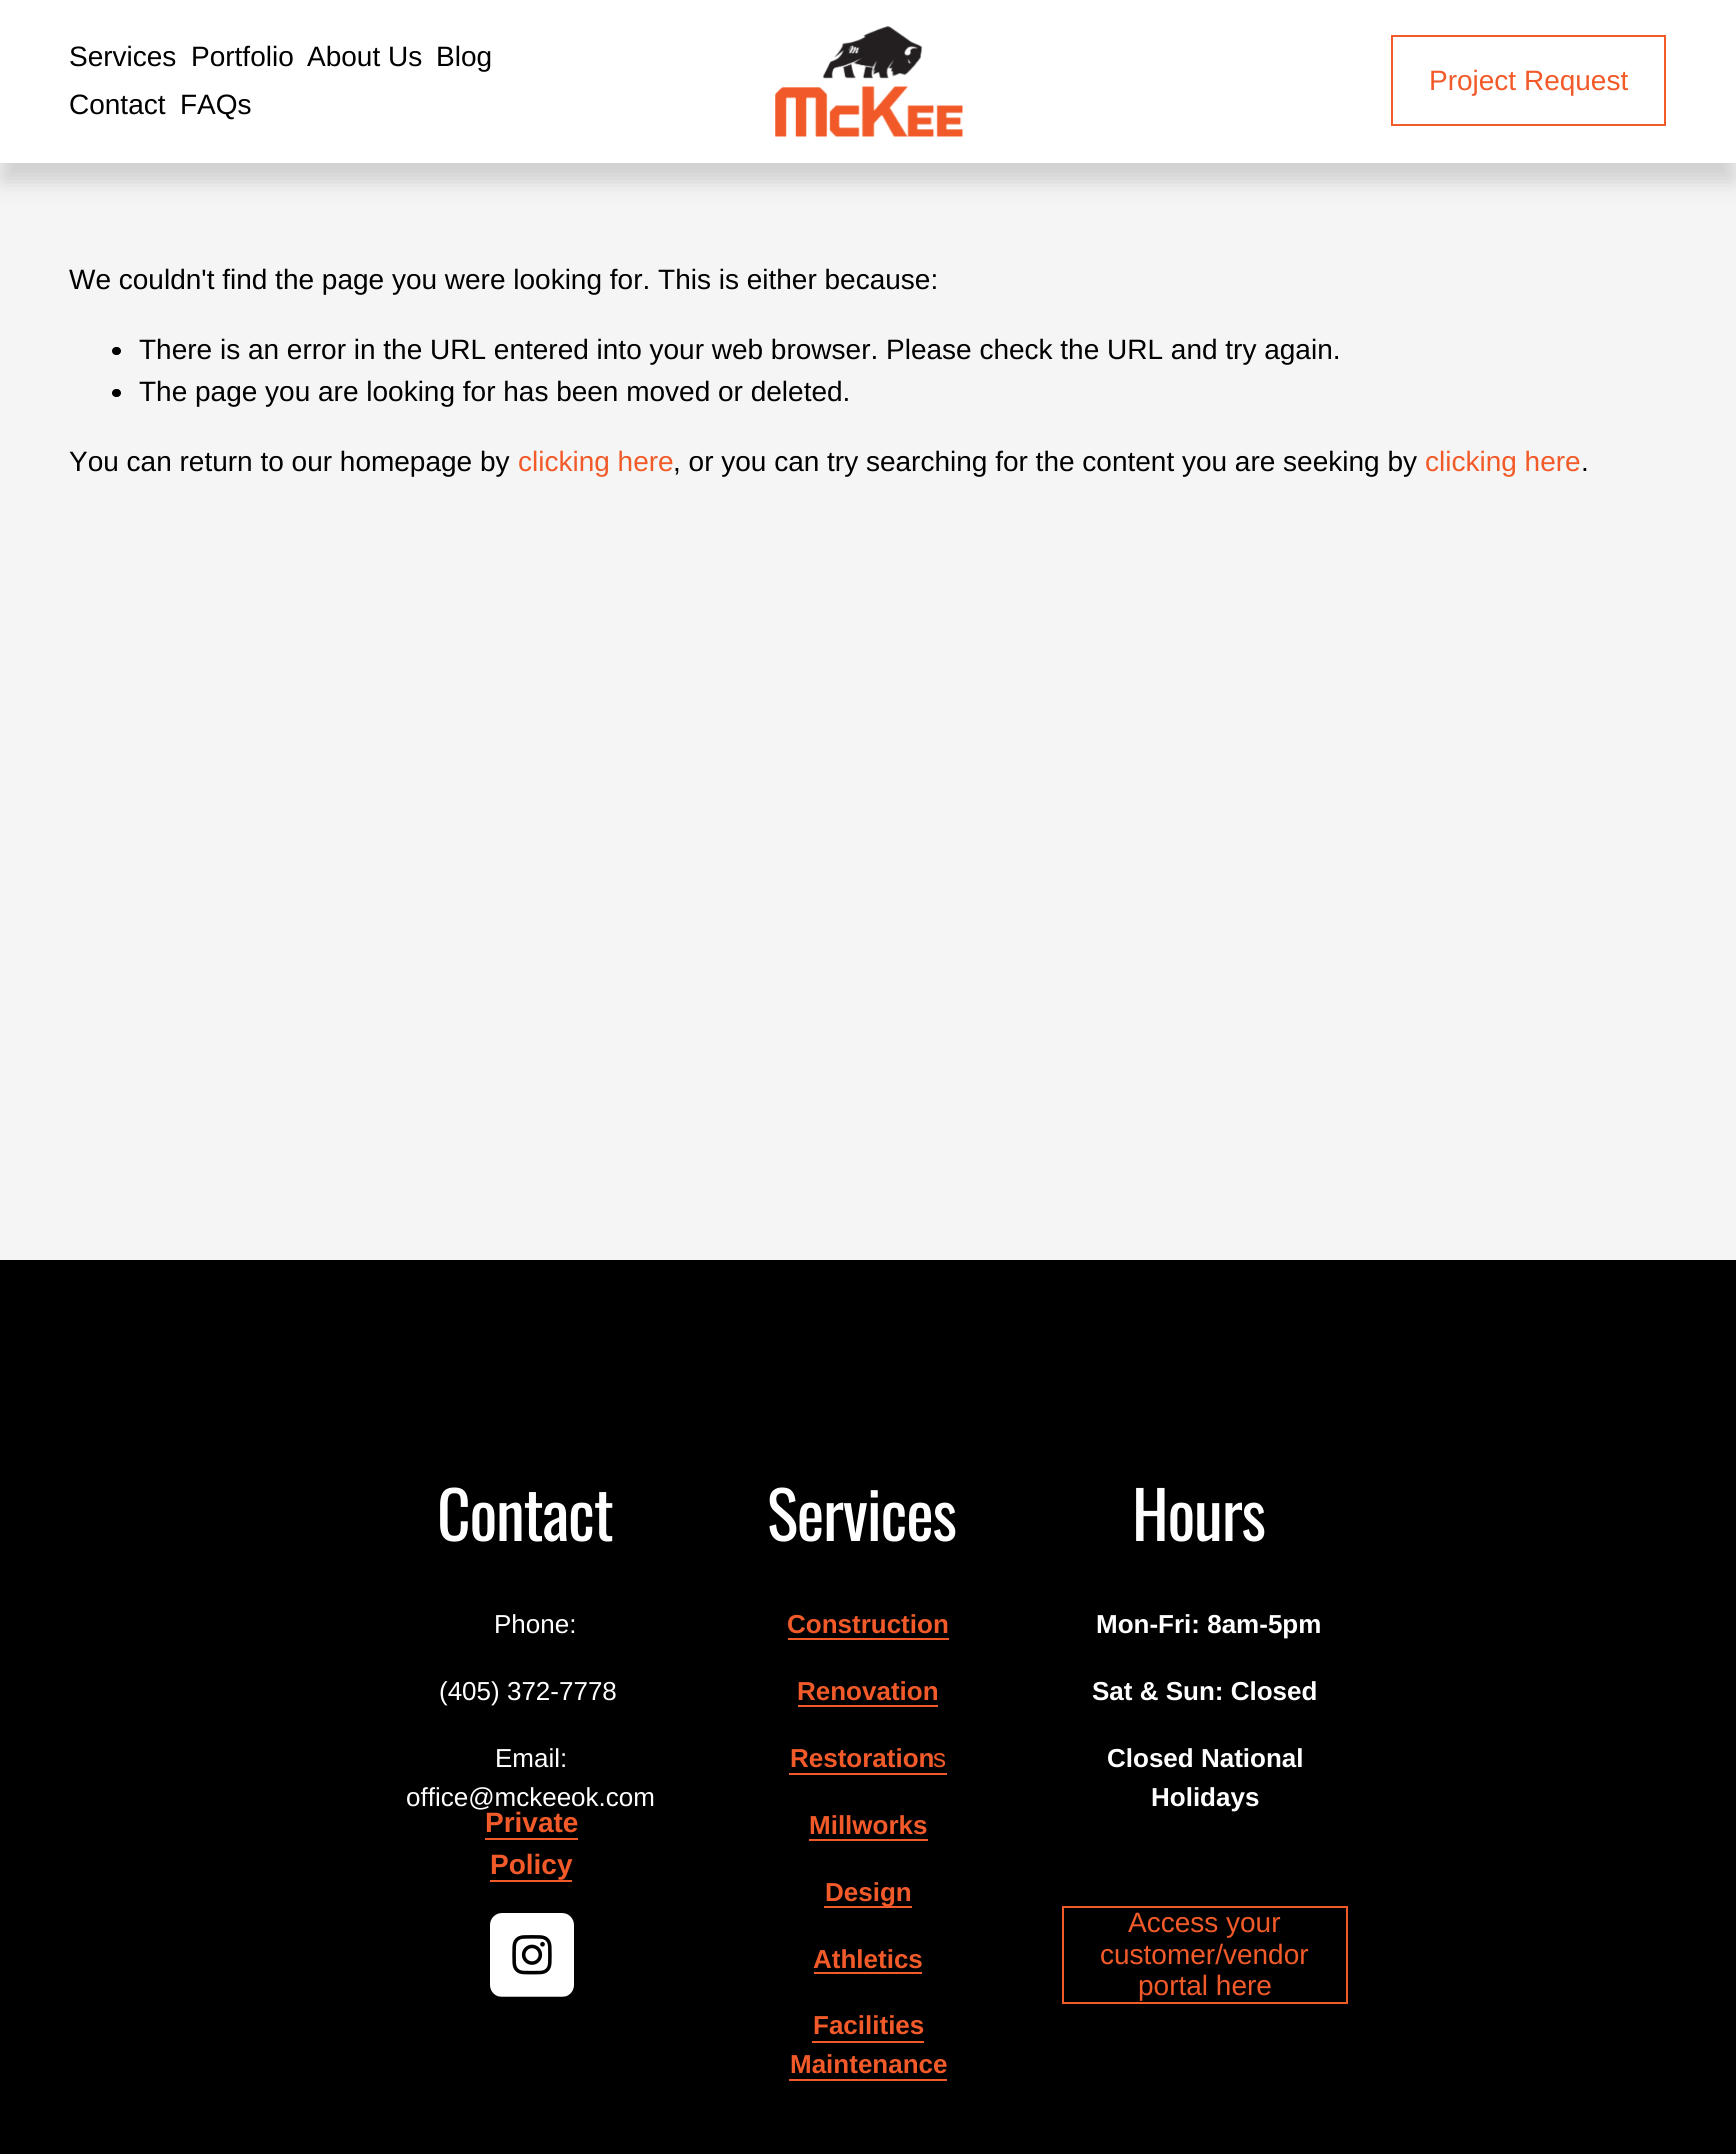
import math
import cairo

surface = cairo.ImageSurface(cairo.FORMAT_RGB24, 1736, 2154)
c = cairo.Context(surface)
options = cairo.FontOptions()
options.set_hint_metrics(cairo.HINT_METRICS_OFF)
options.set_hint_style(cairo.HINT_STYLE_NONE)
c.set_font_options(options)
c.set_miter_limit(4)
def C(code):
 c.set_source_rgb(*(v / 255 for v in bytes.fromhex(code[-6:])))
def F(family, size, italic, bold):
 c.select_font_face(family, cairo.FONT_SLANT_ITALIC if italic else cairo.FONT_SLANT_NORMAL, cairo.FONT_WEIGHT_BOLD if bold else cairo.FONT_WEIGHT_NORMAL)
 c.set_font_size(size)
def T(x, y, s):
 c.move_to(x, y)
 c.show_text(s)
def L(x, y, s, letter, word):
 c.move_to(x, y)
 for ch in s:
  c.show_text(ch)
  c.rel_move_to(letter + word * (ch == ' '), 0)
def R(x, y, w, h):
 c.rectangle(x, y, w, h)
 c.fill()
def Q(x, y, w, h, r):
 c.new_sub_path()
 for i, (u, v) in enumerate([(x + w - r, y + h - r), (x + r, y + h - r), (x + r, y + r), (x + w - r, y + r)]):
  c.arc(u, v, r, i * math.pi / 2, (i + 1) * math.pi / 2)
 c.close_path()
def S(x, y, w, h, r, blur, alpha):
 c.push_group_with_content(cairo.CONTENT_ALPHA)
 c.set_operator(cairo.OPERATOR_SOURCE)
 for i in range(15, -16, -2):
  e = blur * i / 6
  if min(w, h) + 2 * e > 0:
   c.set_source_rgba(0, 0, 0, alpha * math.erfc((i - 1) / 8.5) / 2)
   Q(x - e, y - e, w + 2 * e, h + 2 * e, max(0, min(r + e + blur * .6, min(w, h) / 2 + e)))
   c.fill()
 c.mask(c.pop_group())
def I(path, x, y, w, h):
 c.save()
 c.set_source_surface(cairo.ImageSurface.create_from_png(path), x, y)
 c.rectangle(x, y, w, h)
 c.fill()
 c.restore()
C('f5f5f5')
c.paint()
C('d0d0d0')
S(2,23,1732,159,0,10.5,1)
C('ffffff')
R(0,0,1736,163)
F('Arimo',28,0,0)
C('000000')
T(69,66,'Services')
T(191,66,'Portfolio')
T(307,66,'About Us')
T(436,66,'Blog')
T(69,114,'Contact')
T(180,114,'FAQs')
I('1.png',775,26,188,111)
c.rectangle(1392,36,273,89)
C('f25a29')
c.stroke()
T(1429,90,'Project Request')
C('000000')
T(69,289,'We couldn\'t find the page you were looking for. This is either because:')
Q(112,347,9,8,4)
c.fill()
T(139,359,'There is an error in the URL entered into your web browser. Please check the URL and try again.')
Q(112,389,9,8,4)
c.fill()
T(139,401,'The page you are looking for has been moved or deleted.')
T(69,471,'You can return to our homepage by')
C('f25a29')
T(518,471,'clicking here')
C('000000')
T(673,471,', or you can try searching for the content you are seeking by')
C('f25a29')
T(1425,471,'clicking here')
C('000000')
T(1581,471,'.')
R(0,1260,1736,894)
F('Oswald',65.5,0,0)
C('ffffff')
L(437,1541,'Contact',-1.25,0)
F('Arimo',26,0,0)
T(494,1633,'Phone:')
T(439,1700,'(405) 372-7778')
T(495,1767,'Email:')
T(406,1806,'office@mckeeok.com')
F('Oswald',65.5,0,0)
L(767,1541,'Services',-1.25,0)
F('Arimo',26,0,1)
C('f25a29')
T(787,1633,'Construction')
R(788,1638,161,2)
T(797,1700,'Renovation')
R(798,1705,140,2)
T(790,1767,'Restoration')
F('Arimo',26,0,0)
T(933,1767,'s')
R(789,1773,158,2)
F('Arimo',26,0,1)
T(809,1834,'Millworks')
R(809,1839,119,2)
R(824,1906,88,2)
T(825,1901,'Design')
T(813,1968,'Athletics')
R(814,1972,108,2)
T(813,2034,'Facilities')
R(812,2041,112,2)
T(790,2073,'Maintenance')
R(789,2079,158,2)
F('Oswald',65.5,0,0)
C('ffffff')
L(1132,1541,'Hours',-1.25,0)
F('Arimo',26,0,1)
T(1096,1633,'Mon-Fri: 8am-5pm')
T(1092,1700,'Sat & Sun: Closed')
T(1107,1767,'Closed National')
T(1151,1806,'Holidays')
F('Arimo',28,0,1)
C('f25a29')
T(485,1832,'Private')
R(485,1838,93,2)
T(490,1874,'Policy')
R(490,1880,82,2)
I('2.png',490,1913,84,84)
c.rectangle(1063,1907,284,96)
c.stroke()
F('Arimo',28,0,0)
T(1128,1932,'Access your')
T(1100,1964,'customer/vendor')
T(1138,1995,'portal here')
surface.write_to_png('o.png')
